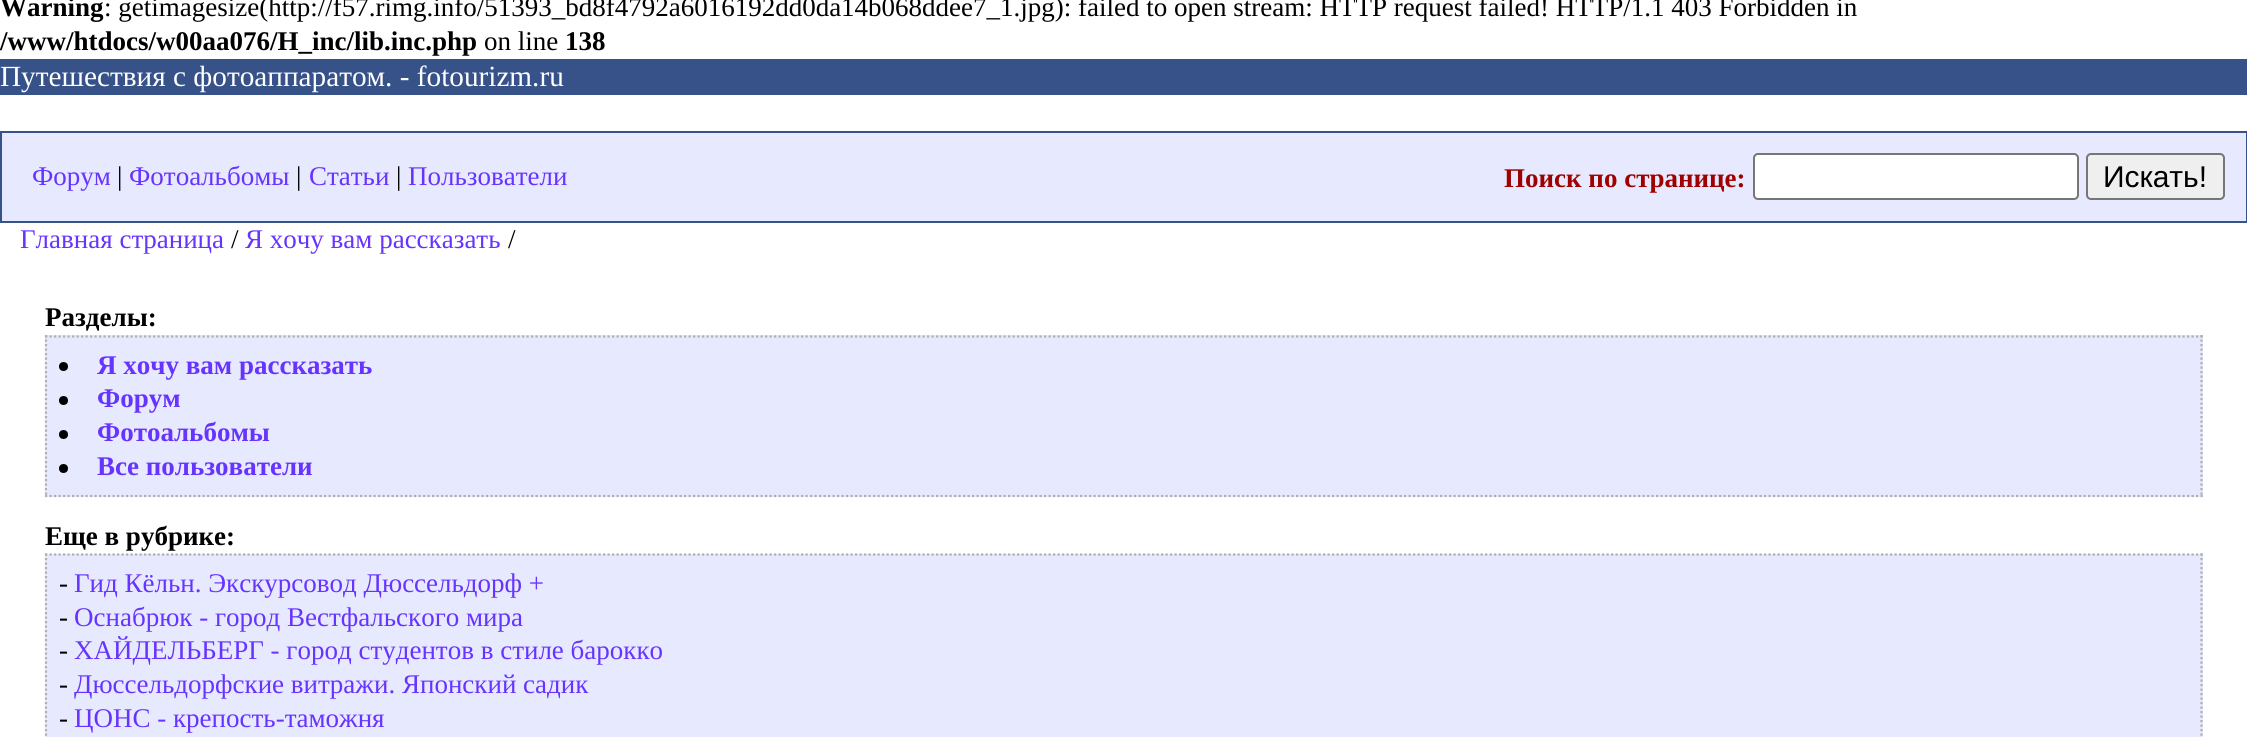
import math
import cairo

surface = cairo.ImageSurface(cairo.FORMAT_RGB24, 2247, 737)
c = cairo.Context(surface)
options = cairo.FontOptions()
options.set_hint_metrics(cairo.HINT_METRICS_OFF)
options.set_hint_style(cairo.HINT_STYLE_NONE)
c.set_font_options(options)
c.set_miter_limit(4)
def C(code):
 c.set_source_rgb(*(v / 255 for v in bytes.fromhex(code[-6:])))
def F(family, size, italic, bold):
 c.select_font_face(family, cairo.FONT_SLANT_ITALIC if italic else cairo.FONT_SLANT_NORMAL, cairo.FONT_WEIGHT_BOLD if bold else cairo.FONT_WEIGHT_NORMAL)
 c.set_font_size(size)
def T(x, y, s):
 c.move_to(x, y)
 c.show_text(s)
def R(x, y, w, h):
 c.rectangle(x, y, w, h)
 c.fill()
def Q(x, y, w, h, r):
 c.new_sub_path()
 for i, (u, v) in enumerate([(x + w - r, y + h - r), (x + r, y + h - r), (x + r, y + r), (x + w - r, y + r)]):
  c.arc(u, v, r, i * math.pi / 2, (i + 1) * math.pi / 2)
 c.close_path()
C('ffffff')
c.paint()
F('Liberation Serif',27,0,1)
C('000000')
T(0,16,'Warning')
F('Liberation Serif',27,0,0)
T(104,16,': getimagesize(http://f57.rimg.info/51393_bd8f4792a6016192dd0da14b068ddee7_1.jpg): failed to open stream: HTTP request failed! HTTP/1.1 403 Forbidden in')
F('Liberation Serif',27,0,1)
T(0,50,'/www/htdocs/w00aa076/H_inc/lib.inc.php')
F('Liberation Serif',27,0,0)
T(484,50,'on line')
F('Liberation Serif',27,0,1)
T(565,50,'138')
C('375288')
R(0,59,2247,36)
F('Liberation Serif',29.25,0,0)
C('ffffff')
T(0,86,'Путешествия с фотоаппаратом. - fotourizm.ru')
C('e7e9fe')
c.rectangle(1,132,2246,90)
c.fill_preserve()
C('375288')
c.stroke()
F('Liberation Serif',27,0,0)
C('6633ff')
T(32,185,'Форум')
C('000000')
T(117,185,'|')
C('6633ff')
T(129,185,'Фотоальбомы')
C('000000')
T(296,185,'|')
C('6633ff')
T(309,185,'Статьи')
C('000000')
T(396,185,'|')
C('6633ff')
T(408,185,'Пользователи')
F('Liberation Serif',27,0,1)
C('9f0000')
T(1504,187,'Поиск по странице:')
C('ffffff')
Q(1754,154,324,45,4)
c.fill_preserve()
C('767676')
c.stroke()
C('efefef')
Q(2087,154,137,45,4)
c.fill_preserve()
C('767676')
c.stroke()
F('Liberation Sans',30,0,0)
C('000000')
T(2103,187,'Искать!')
F('Liberation Serif',27,0,0)
C('6633ff')
T(20,248,'Главная страница')
C('000000')
T(231,248,'/')
C('6633ff')
T(245,248,'Я хочу вам рассказать')
C('000000')
T(508,248,'/')
F('Liberation Serif',27,0,1)
T(45,326,'Разделы:')
C('e7e9fe')
R(45,335,2158,162)
c.new_path()
c.move_to(45,336.5)
c.line_to(2203,336.5)
C('b0b0b0')
c.set_line_width(2.2)
c.set_dash([2.25,2.25])
c.stroke()
c.new_path()
c.move_to(2201.5,335)
c.line_to(2201.5,497)
c.stroke()
c.new_path()
c.move_to(45,496)
c.line_to(2203,496)
c.stroke()
c.new_path()
c.move_to(46,335)
c.line_to(46,497)
c.stroke()
C('000000')
c.arc(63.5,366.5,4.5,0,2 * math.pi)
c.fill()
C('6633ff')
T(97,374,'Я хочу вам рассказать')
C('000000')
c.new_path()
c.arc(63.5,400.5,4.5,0,2 * math.pi)
c.fill()
C('6633ff')
T(97,407,'Форум')
C('000000')
c.new_path()
c.arc(63.5,434.5,4.5,0,2 * math.pi)
c.fill()
C('6633ff')
T(97,441,'Фотоальбомы')
C('000000')
c.new_path()
c.arc(63.5,468.5,4.5,0,2 * math.pi)
c.fill()
C('6633ff')
T(97,475,'Все пользователи')
C('000000')
T(45,545,'Еще в рубрике:')
C('e7e9fe')
R(45,554,2158,183)
c.new_path()
c.move_to(45,554.5)
c.line_to(2203,554.5)
C('b0b0b0')
c.stroke()
c.new_path()
c.move_to(2201.5,553.5)
c.line_to(2201.5,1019)
c.stroke()
c.new_path()
c.move_to(46,553.5)
c.line_to(46,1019)
c.stroke()
F('Liberation Serif',27,0,0)
C('000000')
T(59,592,'-')
C('6633ff')
T(74,592,'Гид Кёльн. Экскурсовод Дюссельдорф +')
C('000000')
T(59,626,'-')
C('6633ff')
T(74,626,'Oснабрюк - город Вестфальского мира')
C('000000')
T(59,659,'-')
C('6633ff')
T(74,659,'ХАЙДЕЛЬБЕРГ - город студентов в стиле барокко')
C('000000')
T(59,693,'-')
C('6633ff')
T(74,693,'Дюссельдорфские витражи. Японский садик')
C('000000')
T(59,727,'-')
C('6633ff')
T(74,727,'ЦОНС - крепость-таможня')
surface.write_to_png('o.png')
